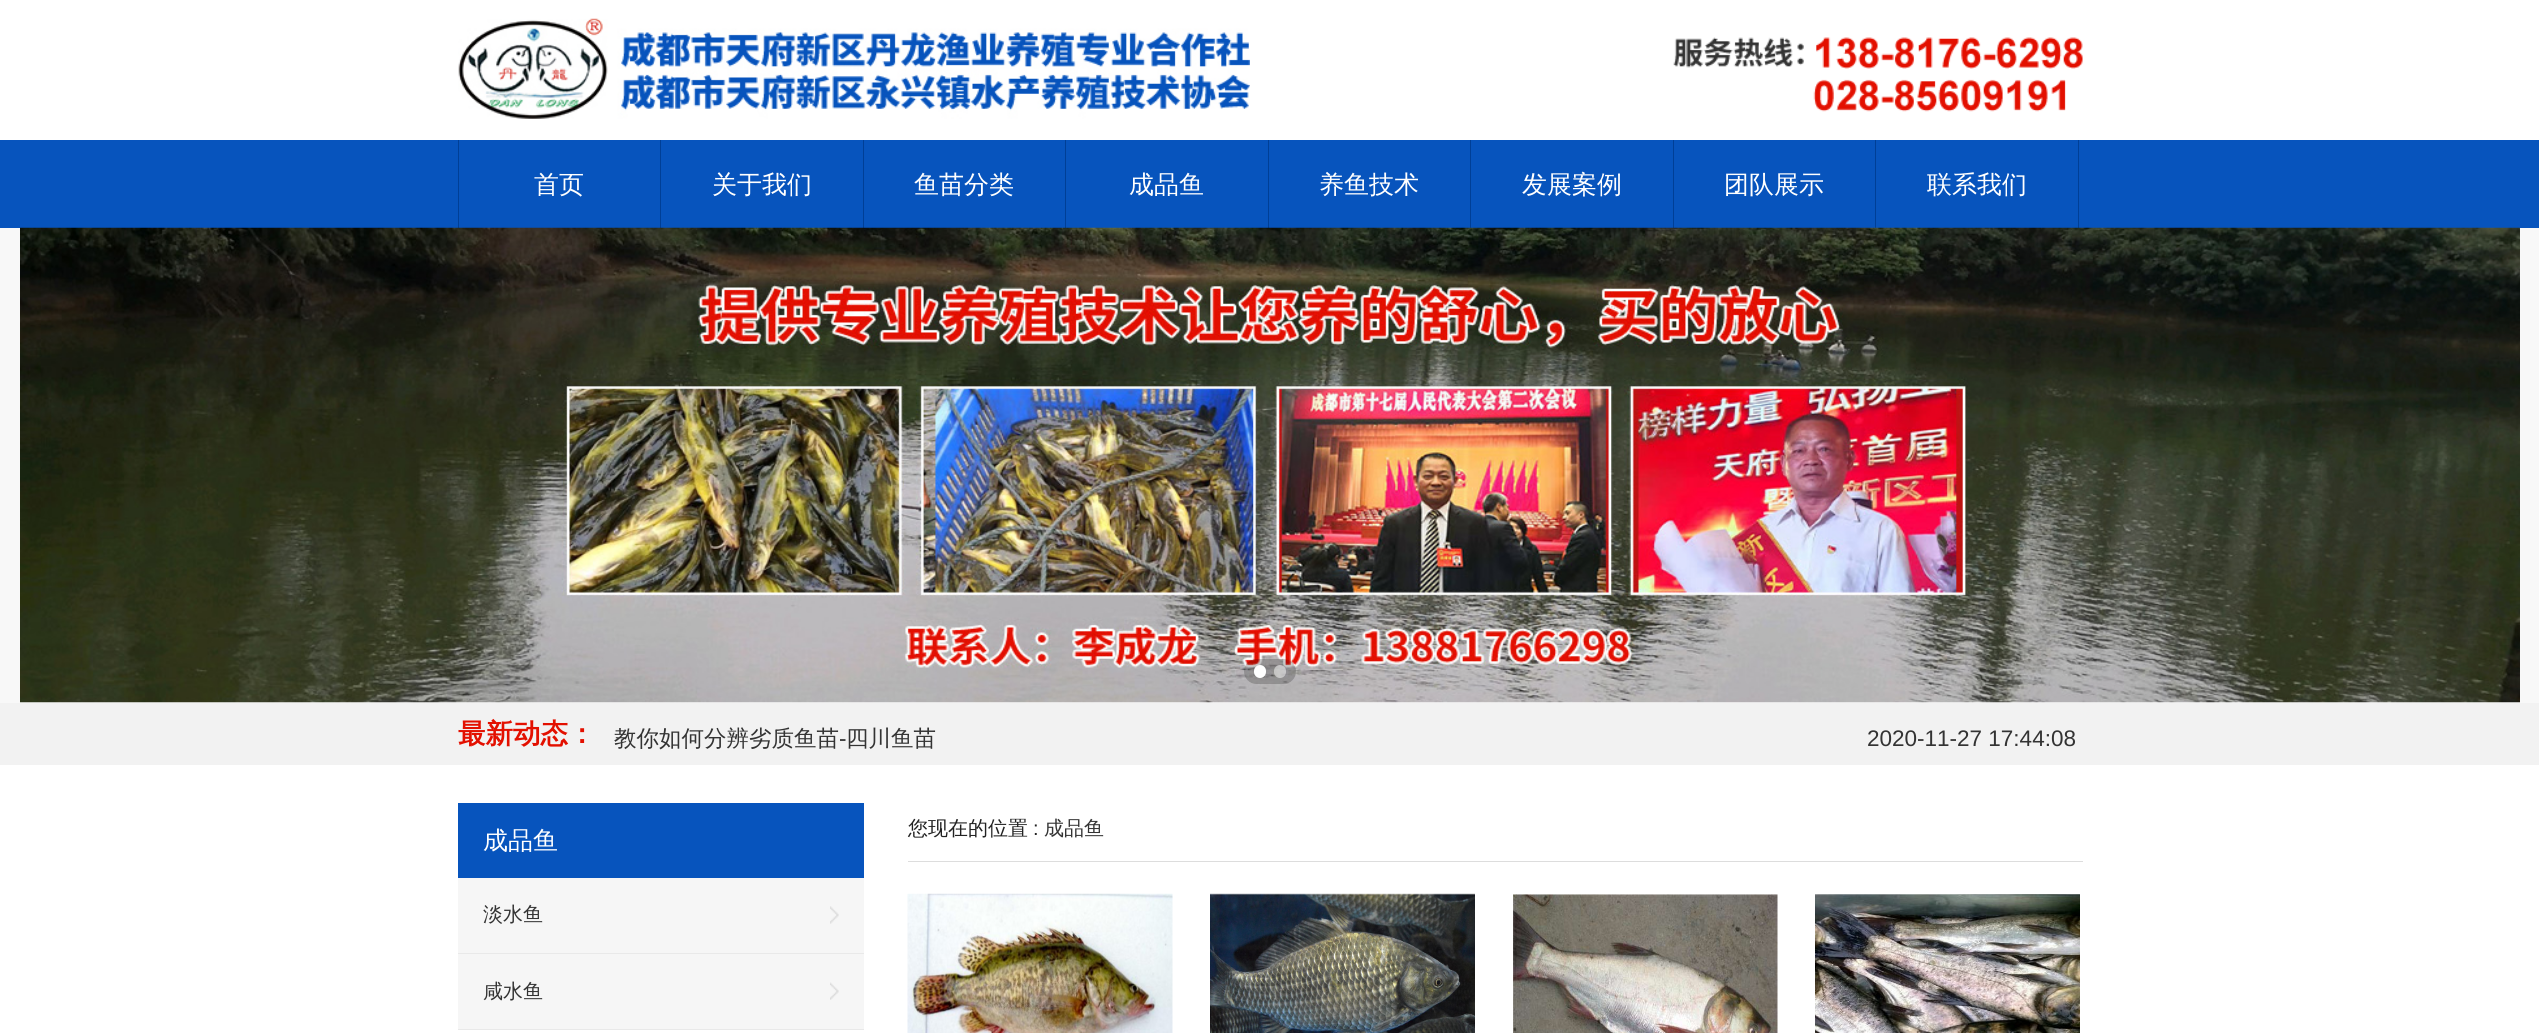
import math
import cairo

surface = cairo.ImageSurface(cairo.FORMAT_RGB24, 2539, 1033)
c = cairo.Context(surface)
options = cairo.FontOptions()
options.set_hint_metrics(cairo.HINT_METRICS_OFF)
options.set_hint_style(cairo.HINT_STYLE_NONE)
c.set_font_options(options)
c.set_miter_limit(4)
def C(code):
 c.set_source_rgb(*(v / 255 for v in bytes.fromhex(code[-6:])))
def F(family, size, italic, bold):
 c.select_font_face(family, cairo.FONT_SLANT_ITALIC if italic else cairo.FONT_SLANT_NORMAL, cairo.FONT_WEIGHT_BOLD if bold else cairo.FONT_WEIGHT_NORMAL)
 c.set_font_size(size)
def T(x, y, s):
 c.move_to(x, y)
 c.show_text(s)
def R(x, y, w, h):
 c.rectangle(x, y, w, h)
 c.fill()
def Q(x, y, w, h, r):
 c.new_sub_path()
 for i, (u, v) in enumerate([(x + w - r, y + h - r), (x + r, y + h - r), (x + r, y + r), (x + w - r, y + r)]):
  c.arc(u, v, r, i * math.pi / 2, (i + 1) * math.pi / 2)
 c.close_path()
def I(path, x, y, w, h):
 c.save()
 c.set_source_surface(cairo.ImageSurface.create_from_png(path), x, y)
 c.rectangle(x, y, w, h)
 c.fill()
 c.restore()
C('ffffff')
c.paint()
I('1.png',458,18,792,101)
I('2.png',1673,37,410,75)
C('0754bd')
R(0,140,2539,88)
C('003f96')
R(660,140,1,88)
R(458,140,1,88)
F('WenQuanYi Zen Hei Medium',25,0,0)
C('ffffff')
T(534,193,'首页')
C('003f96')
R(863,140,1,88)
C('ffffff')
T(712,193,'关于我们')
C('003f96')
R(1065,140,1,88)
C('ffffff')
T(914,193,'鱼苗分类')
C('003f96')
R(1268,140,1,88)
C('ffffff')
T(1129,193,'成品鱼')
C('003f96')
R(1470,140,1,88)
C('ffffff')
T(1319,193,'养鱼技术')
C('003f96')
R(1673,140,1,88)
C('ffffff')
T(1522,193,'发展案例')
C('003f96')
R(1875,140,1,88)
C('ffffff')
T(1724,193,'团队展示')
C('003f96')
R(2078,140,1,88)
C('ffffff')
T(1927,193,'联系我们')
C('f8f8f8')
R(0,228,2539,475)
I('3.png',20,227,2500,476)
c.set_source_rgba(0,0,0,0.2)
Q(1244,659,52,25,12.5)
c.fill()
C('ffffff')
Q(1254,665,12,13,6)
c.fill()
c.set_source_rgba(1,1,1,0.5)
Q(1274,665,12,13,6)
c.fill()
C('f2f2f2')
R(0,703,2539,62)
F('WenQuanYi Zen Hei',27.5,0,1)
C('e31000')
T(458,743,'最新动态：')
F('WenQuanYi Zen Hei Medium',22.5,0,0)
C('333333')
T(614,746,'教你如何分辨劣质鱼苗')
F('Liberation Sans',22.5,0,0)
T(839,746,'-')
F('WenQuanYi Zen Hei Medium',22.5,0,0)
T(846,746,'四川鱼苗')
F('Liberation Sans',22.5,0,0)
T(1867,746,'2020-11-27 17:44:08')
C('0754bd')
R(458,803,406,75)
F('WenQuanYi Zen Hei Medium',25,0,0)
C('ffffff')
T(483,849,'成品鱼')
C('f6f6f6')
R(458,878,406,75)
I('4.png',830,906,9,18)
C('e9e9e9')
R(458,953,406,1)
F('WenQuanYi Zen Hei Medium',20,0,0)
C('333333')
T(483,921,'淡水鱼')
C('f6f6f6')
R(458,954,406,75)
I('5.png',830,982,9,18)
C('e9e9e9')
R(458,1029,406,1)
C('333333')
T(483,998,'咸水鱼')
C('dddddd')
R(908,861,1175,1)
C('222222')
T(908,835,'您现在的位置')
F('Liberation Sans',20,0,0)
T(1033,835,':')
F('WenQuanYi Zen Hei Medium',20,0,0)
C('333333')
T(1044,835,'成品鱼')
I('6.png',907,893,266,140)
I('7.png',1210,893,265,140)
I('8.png',1513,894,265,139)
I('9.png',1815,894,265,139)
surface.write_to_png('o.png')
